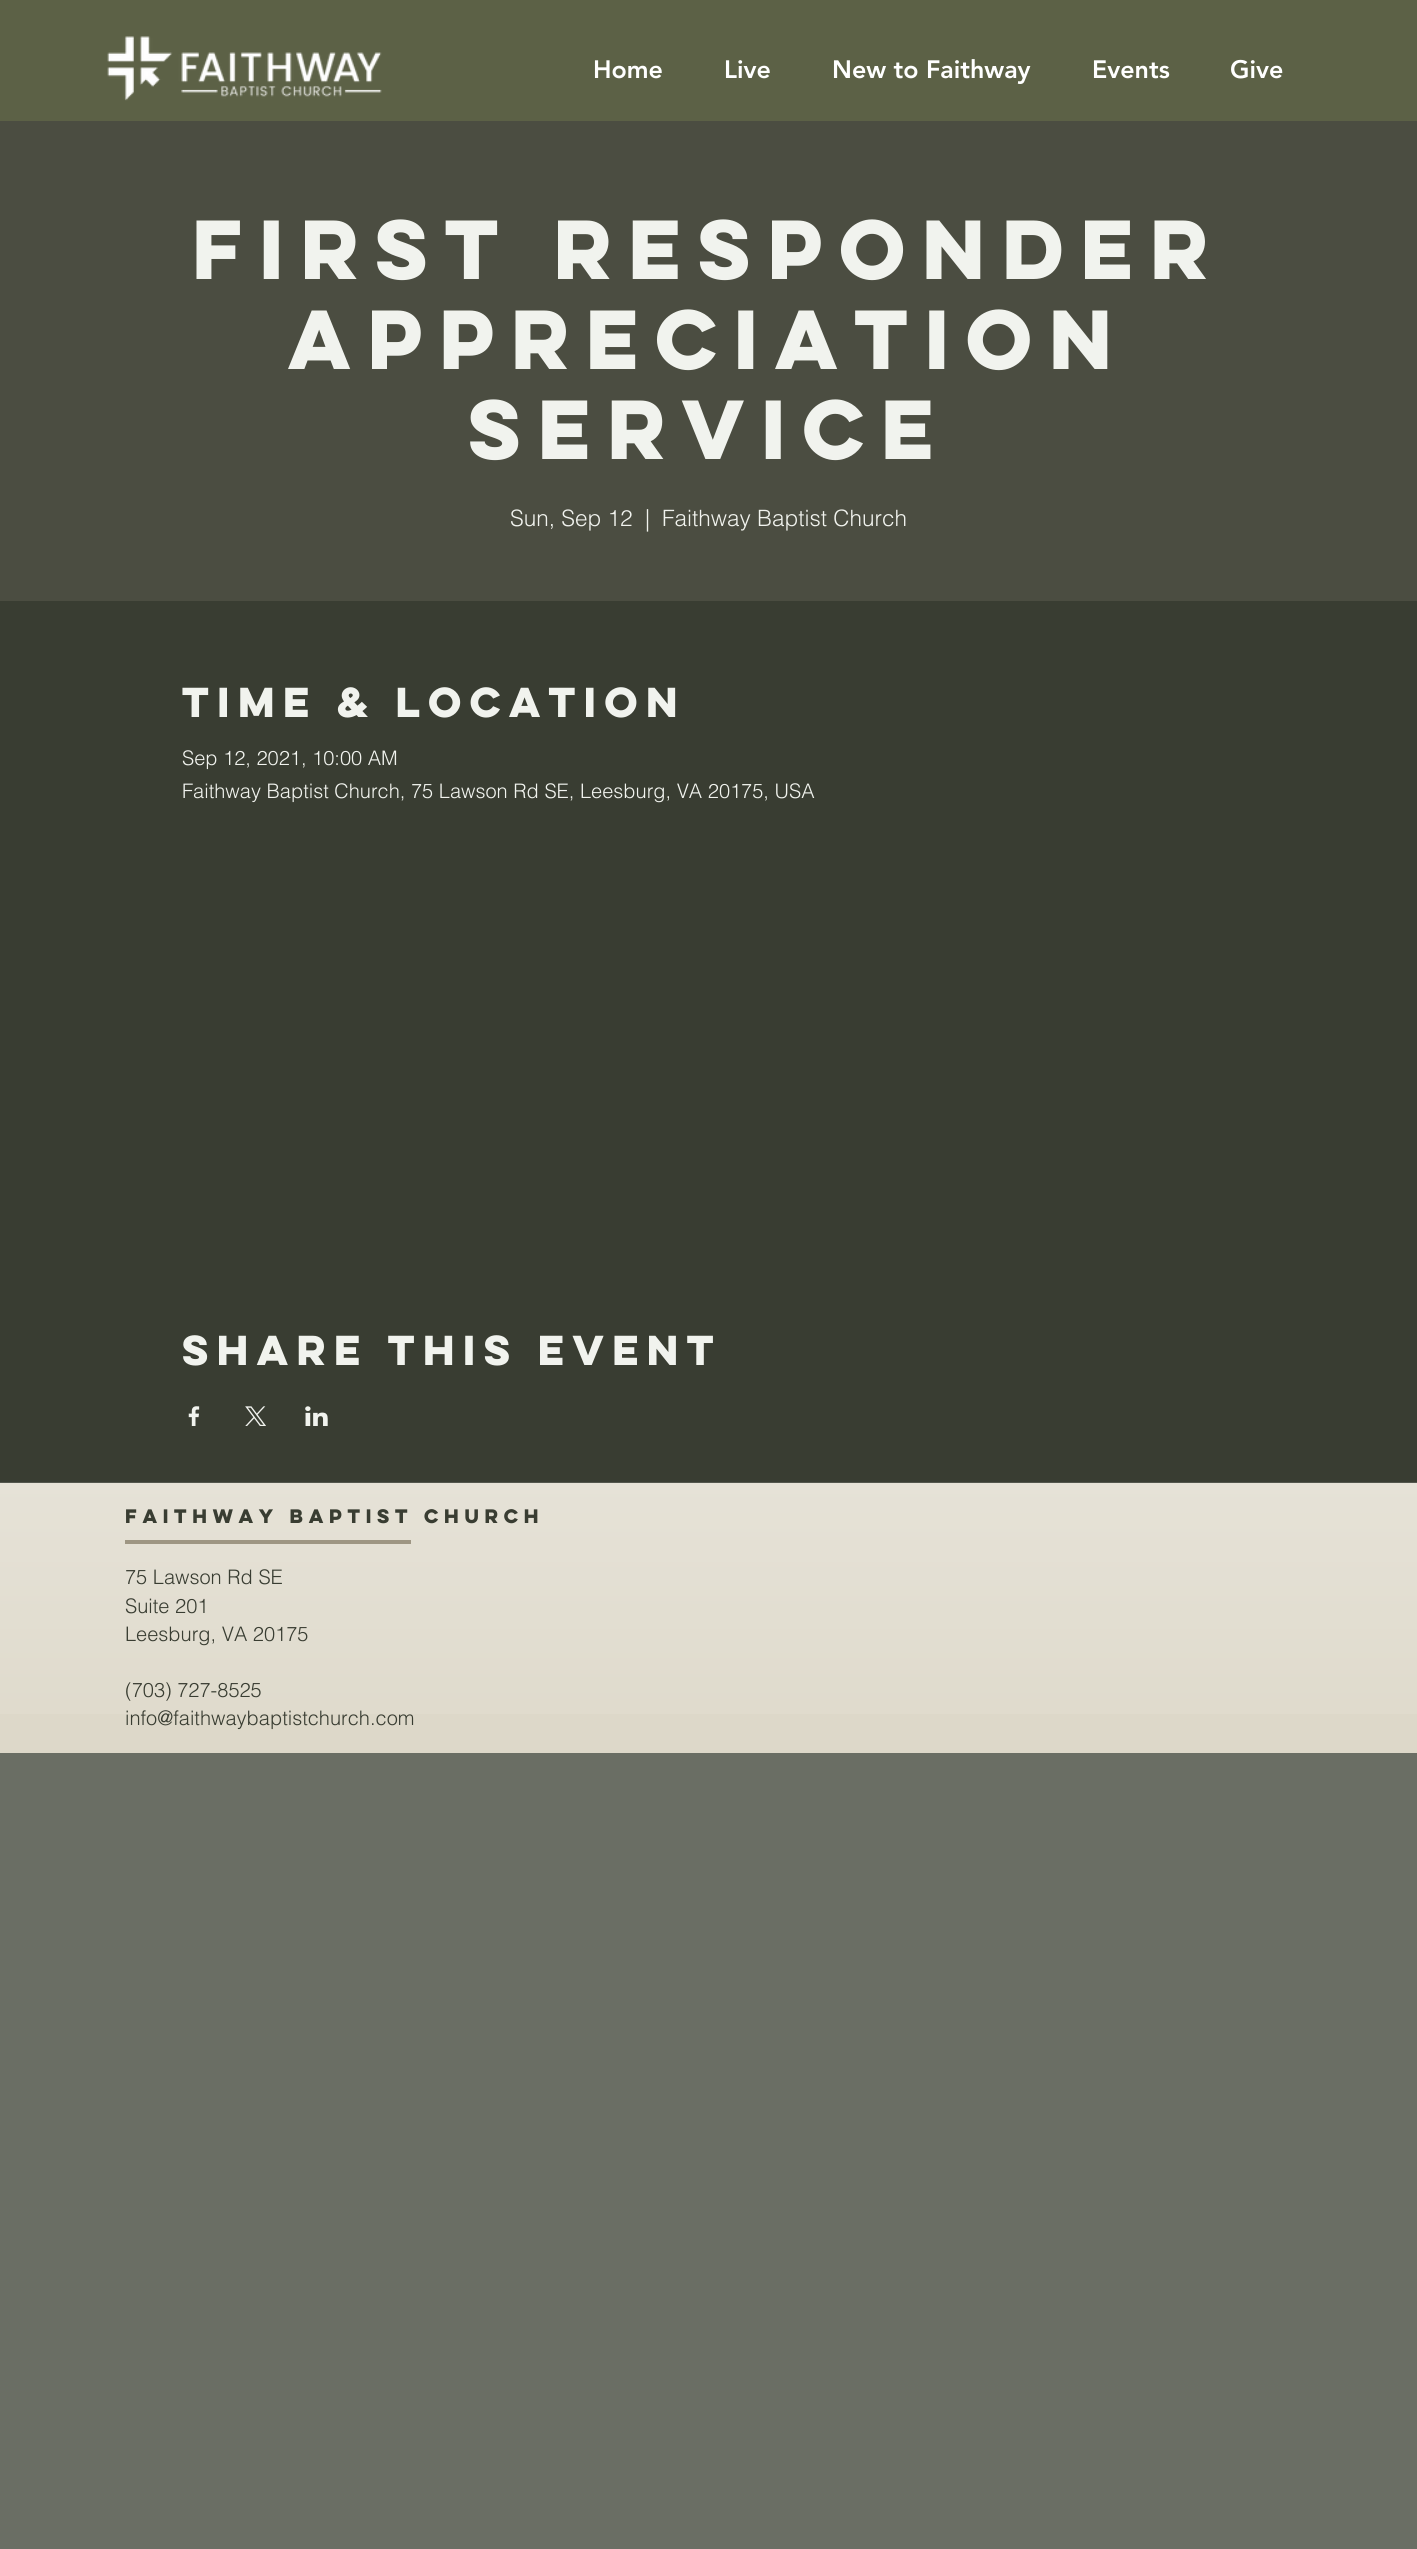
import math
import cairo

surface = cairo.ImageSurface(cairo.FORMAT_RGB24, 1417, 2549)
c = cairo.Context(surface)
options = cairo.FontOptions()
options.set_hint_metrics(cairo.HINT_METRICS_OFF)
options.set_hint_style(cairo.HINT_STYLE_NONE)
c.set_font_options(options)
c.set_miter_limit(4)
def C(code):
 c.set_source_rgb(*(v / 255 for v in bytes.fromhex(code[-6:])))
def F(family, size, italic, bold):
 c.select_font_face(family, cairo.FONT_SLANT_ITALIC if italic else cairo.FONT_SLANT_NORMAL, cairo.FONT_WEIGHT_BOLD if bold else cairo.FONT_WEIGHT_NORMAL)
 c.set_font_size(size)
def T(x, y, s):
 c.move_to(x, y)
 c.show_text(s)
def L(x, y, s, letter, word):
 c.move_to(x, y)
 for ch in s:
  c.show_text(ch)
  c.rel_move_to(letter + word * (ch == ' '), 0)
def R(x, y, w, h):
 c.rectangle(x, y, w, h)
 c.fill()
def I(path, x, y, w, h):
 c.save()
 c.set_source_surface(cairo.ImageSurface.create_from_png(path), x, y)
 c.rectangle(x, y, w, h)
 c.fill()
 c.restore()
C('6a6e64')
c.paint()
C('5c6146')
R(0,0,1417,121)
I('1.png',107,36,275,65)
F('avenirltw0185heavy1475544 Black',25,0,0)
C('ffffff')
T(593,78,'Home')
T(724,78,'Live')
T(832,78,'New to Faithway')
T(1092,78,'Events')
T(1230,78,'Give')
C('4b4d41')
R(0,121,1417,480)
F('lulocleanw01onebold',75,0,1)
C('f1f3ee')
T(192,279,'First Responder')
T(288,369,'Appreciation')
T(468,459,'Service')
F('helvetica Light',22.5,0,0)
T(510,526,'Sun, Sep 12')
T(645,526,'|')
T(662,526,'Faithway Baptist Church')
C('393d32')
R(0,601,1417,882)
F('lulocleanw01onebold',37.5,0,1)
C('f1f3ee')
T(182,717,'Time & Location')
F('helvetica Light',20,0,0)
T(182,765,'Sep 12, 2021, 10:00 AM')
T(182,798,'Faithway Baptist Church, 75 Lawson Rd SE, Leesburg, VA 20175, USA')
F('lulocleanw01onebold',37.5,0,1)
T(182,1365,'Share this event')
I('2.png',188,1406,12,20)
I('3.png',245,1406,21,20)
I('4.png',305,1406,23,20)
C('ddd8c9')
R(0,1483,1417,270)
I('5.png',0,1482,1417,232)
F('lulocleanw01onebold',17.5,0,1)
C('393d32')
L(125,1523,'Faithway Baptist Church',1.75,0)
C('9e9683')
R(125,1540,286,4)
F('helvetica Light',20,0,0)
C('393d32')
T(125,1584,'75 Lawson Rd SE')
T(125,1613,'Suite 201')
T(125,1641,'Leesburg, VA 20175')
T(125,1697,'(703) 727-8525')
T(125,1725,'info@faithwaybaptistchurch.com')
surface.write_to_png('o.png')
